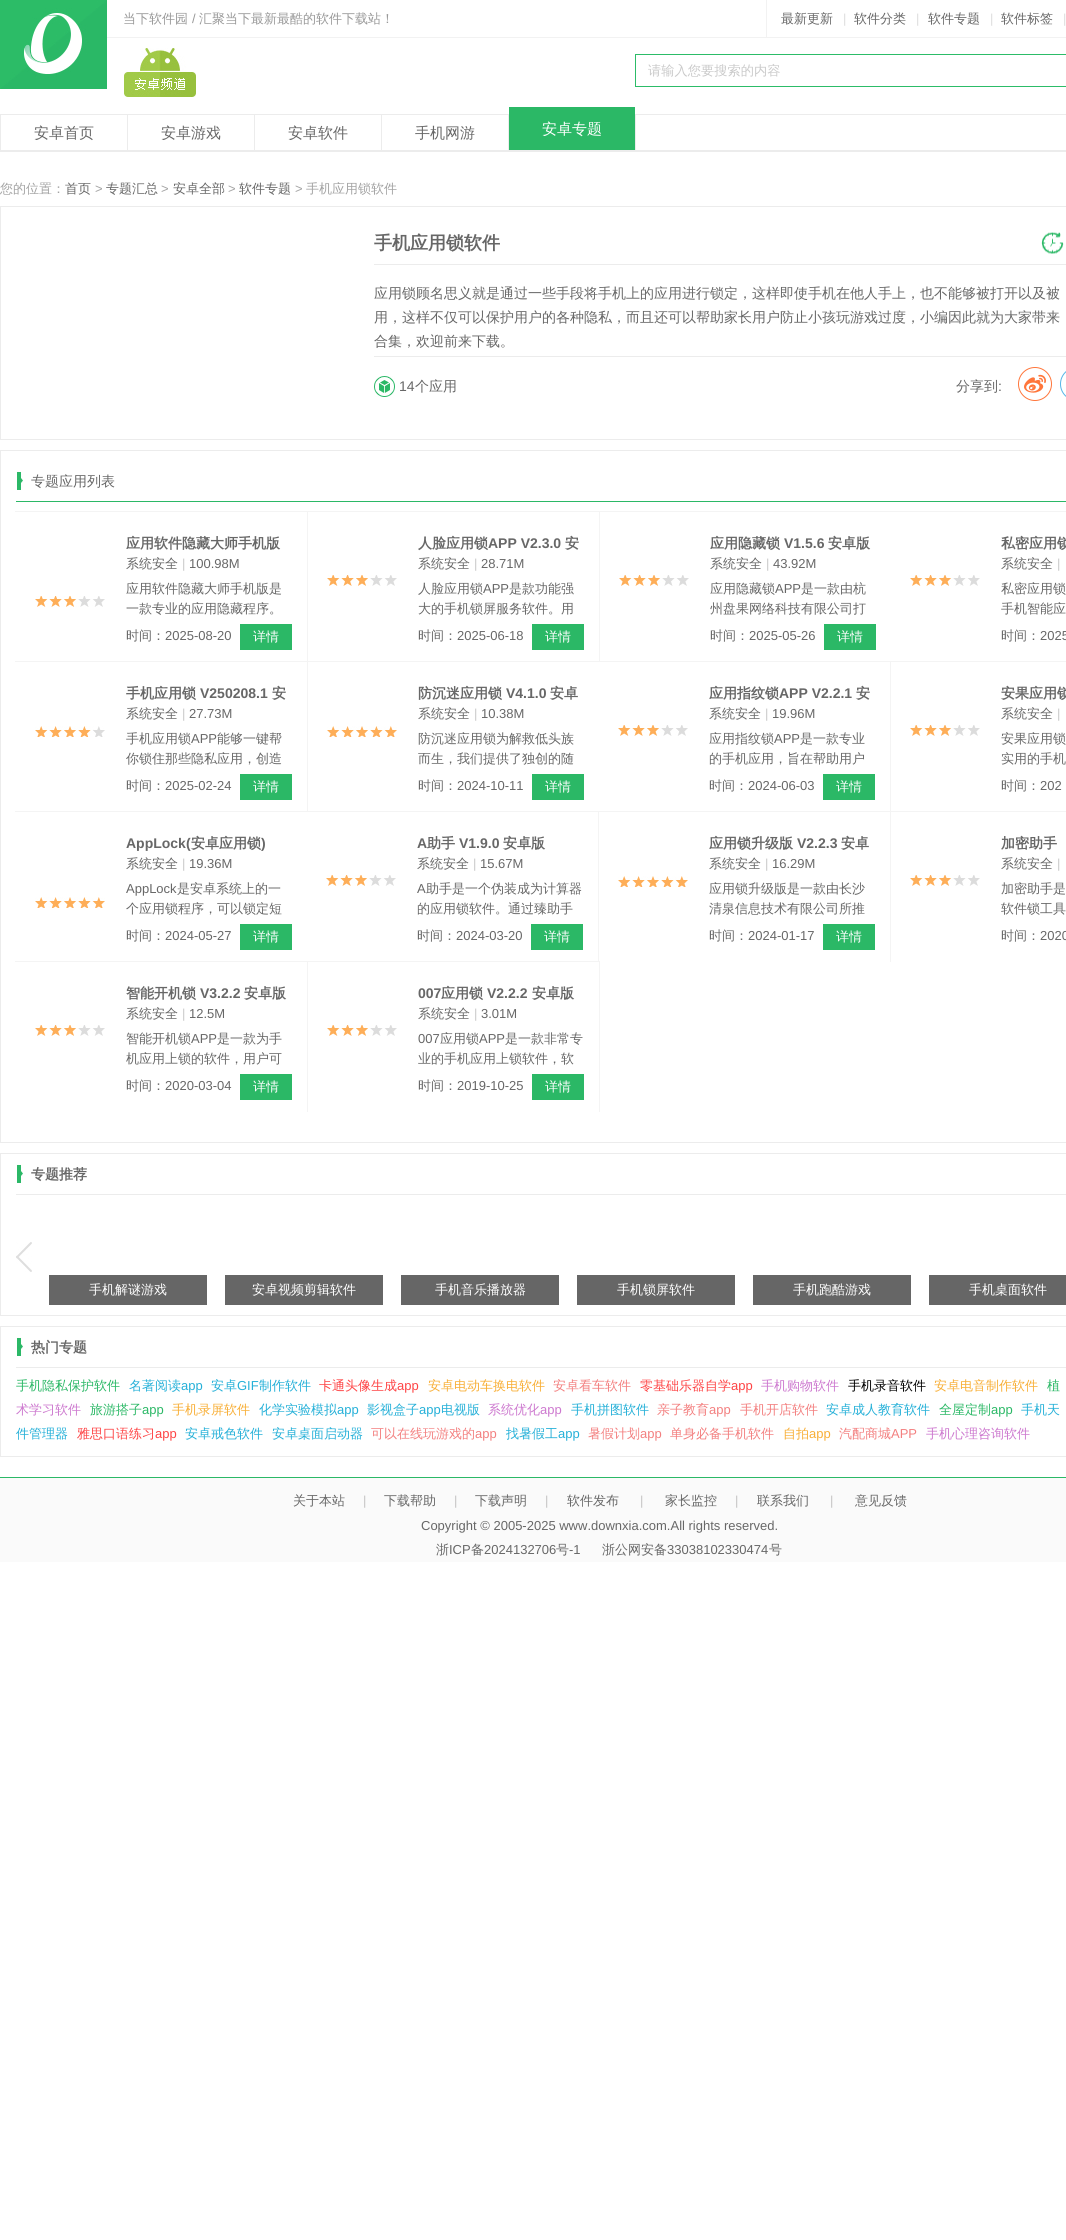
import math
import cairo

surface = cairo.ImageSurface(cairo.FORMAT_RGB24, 1066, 2240)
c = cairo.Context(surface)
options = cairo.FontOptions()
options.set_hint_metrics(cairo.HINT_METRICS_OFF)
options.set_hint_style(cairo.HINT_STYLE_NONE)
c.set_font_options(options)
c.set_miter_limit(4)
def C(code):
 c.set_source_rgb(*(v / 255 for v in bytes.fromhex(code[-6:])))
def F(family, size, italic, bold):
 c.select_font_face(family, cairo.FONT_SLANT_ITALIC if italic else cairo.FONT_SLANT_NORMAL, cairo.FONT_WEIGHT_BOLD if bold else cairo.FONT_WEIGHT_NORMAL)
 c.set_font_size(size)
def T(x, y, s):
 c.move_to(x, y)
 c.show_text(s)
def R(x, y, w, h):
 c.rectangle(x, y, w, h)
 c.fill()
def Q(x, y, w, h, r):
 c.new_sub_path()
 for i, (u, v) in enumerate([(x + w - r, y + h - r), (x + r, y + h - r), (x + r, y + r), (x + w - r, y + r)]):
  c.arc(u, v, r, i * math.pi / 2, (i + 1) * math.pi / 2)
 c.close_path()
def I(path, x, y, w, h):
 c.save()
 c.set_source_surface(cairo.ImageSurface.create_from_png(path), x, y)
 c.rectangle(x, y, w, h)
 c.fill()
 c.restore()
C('ffffff')
c.paint()
C('f2f2f2')
R(107,37,959,1)
I('1.png',0,0,107,89)
F('WenQuanYi Zen Hei Medium',13,0,0)
C('999999')
T(123,23,'当下软件园')
F('Liberation Sans',13,0,0)
T(192,23,'/')
F('WenQuanYi Zen Hei Medium',13,0,0)
T(199,23,'汇聚当下最新最酷的软件下载站！')
C('f2f2f2')
R(766,0,1,37)
C('676767')
T(781,23,'最新更新')
F('Liberation Sans',13,0,0)
C('dddddd')
T(843,23,'|')
F('WenQuanYi Zen Hei Medium',13,0,0)
C('676767')
T(854,23,'软件分类')
F('Liberation Sans',13,0,0)
C('dddddd')
T(916,23,'|')
F('WenQuanYi Zen Hei Medium',13,0,0)
C('676767')
T(928,23,'软件专题')
F('Liberation Sans',13,0,0)
C('dddddd')
T(990,23,'|')
F('WenQuanYi Zen Hei Medium',13,0,0)
C('676767')
T(1001,23,'软件标签')
F('Liberation Sans',13,0,0)
C('dddddd')
T(1063,23,'|')
I('2.png',124,48,72,49)
c.rectangle(635.5,54.5,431,32)
C('2cbc68')
c.set_line_width(1)
c.stroke()
F('WenQuanYi Zen Hei Medium',13.25,0,0)
C('cacaca')
T(648,75,'请输入您要搜索的内容')
C('ececec')
R(0,114,1066,1)
R(0,150,1066,2)
R(0,114,1,38)
R(127,115,1,35)
F('WenQuanYi Zen Hei Medium',15,0,0)
C('676767')
T(34,138,'安卓首页')
C('ececec')
R(254,115,1,35)
C('676767')
T(161,138,'安卓游戏')
C('ececec')
R(381,115,1,35)
C('676767')
T(288,138,'安卓软件')
C('ececec')
R(508,115,1,35)
C('676767')
T(415,138,'手机网游')
C('ececec')
R(635,115,1,35)
C('2bb866')
R(509,107,126,43)
C('ffffff')
T(542,134,'安卓专题')
F('WenQuanYi Zen Hei Medium',13,0,0)
C('a3a3a3')
T(0,193,'您的位置：')
C('676767')
T(65,193,'首页')
F('Liberation Sans',13,0,0)
C('a3a3a3')
T(95,193,'>')
F('WenQuanYi Zen Hei Medium',13,0,0)
C('676767')
T(106,193,'专题汇总')
F('Liberation Sans',13,0,0)
C('a3a3a3')
T(161,193,'>')
F('WenQuanYi Zen Hei Medium',13,0,0)
C('676767')
T(173,193,'安卓全部')
F('Liberation Sans',13,0,0)
C('a3a3a3')
T(228,193,'>')
F('WenQuanYi Zen Hei Medium',13,0,0)
C('676767')
T(239,193,'软件专题')
F('Liberation Sans',13,0,0)
C('a3a3a3')
T(295,193,'>')
F('WenQuanYi Zen Hei Medium',13,0,0)
T(306,193,'手机应用锁软件')
c.rectangle(.5,206.5,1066,233)
C('ececec')
c.stroke()
F('WenQuanYi Zen Hei',18,0,1)
C('676767')
T(374,249,'手机应用锁软件')
I('3.png',1041,232,23,22)
C('ececec')
R(374,264,692,1)
R(374,356,692,1)
F('WenQuanYi Zen Hei Medium',14,0,0)
C('676767')
T(374,298,'应用锁顾名思义就是通过一些手段将手机上的应用进行锁定，这样即使手机在他人手上，也不能够被打开以及被')
T(374,322,'用，这样不仅可以保护用户的各种隐私，而且还可以帮助家长用户防止小孩玩游戏过度，小编因此就为大家带来')
T(374,346,'合集，欢迎前来下载。')
I('4.png',374,376,21,21)
F('Liberation Sans',14,0,0)
T(399,391,'14')
F('WenQuanYi Zen Hei Medium',14,0,0)
T(415,391,'个应用')
T(956,391,'分享到')
F('Liberation Sans',14,0,0)
T(998,391,':')
c.new_path()
c.arc(1035,384,16.5,0,2 * math.pi)
C('ff763b')
c.stroke()
I('5.png',1024,374,22,19)
Q(1060.5,367.5,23,33,16.5)
C('56b6e7')
c.stroke()
c.rectangle(.5,450.5,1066,692)
C('ececec')
c.stroke()
I('6.png',16,471,7,19)
C('2bb866')
R(16,501,1050,1)
F('WenQuanYi Zen Hei Medium',14,0,0)
C('676767')
T(31,486,'专题应用列表')
C('f4f4f4')
R(15,511,293,1)
R(307,511,1,151)
I('7.png',35,596,70,11)
F('WenQuanYi Zen Hei',14,0,1)
C('676767')
T(126,548,'应用软件隐藏大师手机版')
F('WenQuanYi Zen Hei Medium',13,0,0)
T(126,568,'系统安全')
F('Liberation Sans',13,0,0)
C('cacaca')
T(182,568,'|')
C('676767')
T(189,568,'100.98M')
F('WenQuanYi Zen Hei Medium',13,0,0)
T(126,593,'应用软件隐藏大师手机版是')
T(126,613,'一款专业的应用隐藏程序。')
T(126,640,'时间：')
F('Liberation Sans',13,0,0)
T(165,640,'2025-08-20')
C('2bb866')
R(240,624,52,26)
F('WenQuanYi Zen Hei Medium',13,0,0)
C('ffffff')
T(253,641,'详情')
C('f4f4f4')
R(307,511,293,1)
R(599,511,1,151)
I('7.png',327,575,70,11)
F('WenQuanYi Zen Hei',14,0,1)
C('676767')
T(418,548,'人脸应用锁')
F('Liberation Sans',14,0,1)
T(488,548,'APP V2.3.0')
F('WenQuanYi Zen Hei',14,0,1)
T(565,548,'安')
F('WenQuanYi Zen Hei Medium',13,0,0)
T(418,568,'系统安全')
F('Liberation Sans',13,0,0)
C('cacaca')
T(474,568,'|')
C('676767')
T(481,568,'28.71M')
F('WenQuanYi Zen Hei Medium',13,0,0)
T(418,593,'人脸应用锁')
F('Liberation Sans',13,0,0)
T(483,593,'APP')
F('WenQuanYi Zen Hei Medium',13,0,0)
T(509,593,'是款功能强')
T(418,613,'大的手机锁屏服务软件。用')
T(418,640,'时间：')
F('Liberation Sans',13,0,0)
T(457,640,'2025-06-18')
C('2bb866')
R(532,624,52,26)
F('WenQuanYi Zen Hei Medium',13,0,0)
C('ffffff')
T(545,641,'详情')
C('f4f4f4')
R(599,511,467,1)
I('7.png',619,575,70,11)
F('WenQuanYi Zen Hei',14,0,1)
C('676767')
T(710,548,'应用隐藏锁')
F('Liberation Sans',14,0,1)
T(784,548,'V1.5.6')
F('WenQuanYi Zen Hei',14,0,1)
T(828,548,'安卓版')
F('WenQuanYi Zen Hei Medium',13,0,0)
T(710,568,'系统安全')
F('Liberation Sans',13,0,0)
C('cacaca')
T(766,568,'|')
C('676767')
T(773,568,'43.92M')
F('WenQuanYi Zen Hei Medium',13,0,0)
T(710,593,'应用隐藏锁')
F('Liberation Sans',13,0,0)
T(775,593,'APP')
F('WenQuanYi Zen Hei Medium',13,0,0)
T(801,593,'是一款由杭')
T(710,613,'州盘果网络科技有限公司打')
T(710,640,'时间：')
F('Liberation Sans',13,0,0)
T(749,640,'2025-05-26')
C('2bb866')
R(824,624,52,26)
F('WenQuanYi Zen Hei Medium',13,0,0)
C('ffffff')
T(837,641,'详情')
I('7.png',910,575,70,11)
F('WenQuanYi Zen Hei',14,0,1)
C('676767')
T(1001,548,'私密应用锁')
F('WenQuanYi Zen Hei Medium',13,0,0)
T(1001,568,'系统安全')
F('Liberation Sans',13,0,0)
C('cacaca')
T(1057,568,'|')
F('WenQuanYi Zen Hei Medium',13,0,0)
C('676767')
T(1001,593,'私密应用锁')
T(1001,613,'手机智能应')
T(1001,640,'时间：')
F('Liberation Sans',13,0,0)
T(1040,640,'2025')
C('f4f4f4')
R(15,661,293,1)
R(307,661,1,151)
I('8.png',35,726,70,11)
F('WenQuanYi Zen Hei',14,0,1)
C('676767')
T(126,698,'手机应用锁')
F('Liberation Sans',14,0,1)
T(200,698,'V250208.1')
F('WenQuanYi Zen Hei',14,0,1)
T(272,698,'安')
F('WenQuanYi Zen Hei Medium',13,0,0)
T(126,718,'系统安全')
F('Liberation Sans',13,0,0)
C('cacaca')
T(182,718,'|')
C('676767')
T(189,718,'27.73M')
F('WenQuanYi Zen Hei Medium',13,0,0)
T(126,743,'手机应用锁')
F('Liberation Sans',13,0,0)
T(191,743,'APP')
F('WenQuanYi Zen Hei Medium',13,0,0)
T(217,743,'能够一键帮')
T(126,763,'你锁住那些隐私应用，创造')
T(126,790,'时间：')
F('Liberation Sans',13,0,0)
T(165,790,'2025-02-24')
C('2bb866')
R(240,774,52,26)
F('WenQuanYi Zen Hei Medium',13,0,0)
C('ffffff')
T(253,791,'详情')
C('f4f4f4')
R(307,661,584,1)
I('9.png',327,726,70,11)
F('WenQuanYi Zen Hei',14,0,1)
C('676767')
T(418,698,'防沉迷应用锁')
F('Liberation Sans',14,0,1)
T(506,698,'V4.1.0')
F('WenQuanYi Zen Hei',14,0,1)
T(550,698,'安卓')
F('WenQuanYi Zen Hei Medium',13,0,0)
T(418,718,'系统安全')
F('Liberation Sans',13,0,0)
C('cacaca')
T(474,718,'|')
C('676767')
T(481,718,'10.38M')
F('WenQuanYi Zen Hei Medium',13,0,0)
T(418,743,'防沉迷应用锁为解救低头族')
T(418,763,'而生，我们提供了独创的随')
T(418,790,'时间：')
F('Liberation Sans',13,0,0)
T(457,790,'2024-10-11')
C('2bb866')
R(532,774,52,26)
F('WenQuanYi Zen Hei Medium',13,0,0)
C('ffffff')
T(545,791,'详情')
C('f4f4f4')
R(890,661,1,151)
I('7.png',618,725,70,11)
F('WenQuanYi Zen Hei',14,0,1)
C('676767')
T(709,698,'应用指纹锁')
F('Liberation Sans',14,0,1)
T(779,698,'APP V2.2.1')
F('WenQuanYi Zen Hei',14,0,1)
T(856,698,'安')
F('WenQuanYi Zen Hei Medium',13,0,0)
T(709,718,'系统安全')
F('Liberation Sans',13,0,0)
C('cacaca')
T(765,718,'|')
C('676767')
T(772,718,'19.96M')
F('WenQuanYi Zen Hei Medium',13,0,0)
T(709,743,'应用指纹锁')
F('Liberation Sans',13,0,0)
T(774,743,'APP')
F('WenQuanYi Zen Hei Medium',13,0,0)
T(800,743,'是一款专业')
T(709,763,'的手机应用，旨在帮助用户')
T(709,790,'时间：')
F('Liberation Sans',13,0,0)
T(748,790,'2024-06-03')
C('2bb866')
R(823,774,52,26)
F('WenQuanYi Zen Hei Medium',13,0,0)
C('ffffff')
T(836,791,'详情')
C('f4f4f4')
R(890,661,176,1)
I('7.png',910,725,70,11)
F('WenQuanYi Zen Hei',14,0,1)
C('676767')
T(1001,698,'安果应用锁')
F('WenQuanYi Zen Hei Medium',13,0,0)
T(1001,718,'系统安全')
F('Liberation Sans',13,0,0)
C('cacaca')
T(1057,718,'|')
F('WenQuanYi Zen Hei Medium',13,0,0)
C('676767')
T(1001,743,'安果应用锁')
T(1001,763,'实用的手机')
T(1001,790,'时间：')
F('Liberation Sans',13,0,0)
T(1040,790,'202')
C('f4f4f4')
R(15,811,584,1)
I('9.png',35,897,70,11)
F('Liberation Sans',14,0,1)
C('676767')
T(126,848,'AppLock(')
F('WenQuanYi Zen Hei',14,0,1)
T(191,848,'安卓应用锁')
F('Liberation Sans',14,0,1)
T(261,848,')')
F('WenQuanYi Zen Hei Medium',13,0,0)
T(126,868,'系统安全')
F('Liberation Sans',13,0,0)
C('cacaca')
T(182,868,'|')
C('676767')
T(189,868,'19.36M')
T(126,893,'AppLock')
F('WenQuanYi Zen Hei Medium',13,0,0)
T(177,893,'是安卓系统上的一')
T(126,913,'个应用锁程序，可以锁定短')
T(126,940,'时间：')
F('Liberation Sans',13,0,0)
T(165,940,'2024-05-27')
C('2bb866')
R(240,924,52,26)
F('WenQuanYi Zen Hei Medium',13,0,0)
C('ffffff')
T(253,941,'详情')
C('f4f4f4')
R(598,811,1,151)
I('7.png',326,875,70,11)
F('Liberation Sans',14,0,1)
C('676767')
T(417,848,'A')
F('WenQuanYi Zen Hei',14,0,1)
T(427,848,'助手')
F('Liberation Sans',14,0,1)
T(459,848,'V1.9.0')
F('WenQuanYi Zen Hei',14,0,1)
T(503,848,'安卓版')
F('WenQuanYi Zen Hei Medium',13,0,0)
T(417,868,'系统安全')
F('Liberation Sans',13,0,0)
C('cacaca')
T(473,868,'|')
C('676767')
T(480,868,'15.67M')
T(417,893,'A')
F('WenQuanYi Zen Hei Medium',13,0,0)
T(426,893,'助手是一个伪装成为计算器')
T(417,913,'的应用锁软件。通过臻助手')
T(417,940,'时间：')
F('Liberation Sans',13,0,0)
T(456,940,'2024-03-20')
C('2bb866')
R(531,924,52,26)
F('WenQuanYi Zen Hei Medium',13,0,0)
C('ffffff')
T(544,941,'详情')
C('f4f4f4')
R(598,811,293,1)
R(890,811,1,151)
I('9.png',618,876,70,11)
F('WenQuanYi Zen Hei',14,0,1)
C('676767')
T(709,848,'应用锁升级版')
F('Liberation Sans',14,0,1)
T(797,848,'V2.2.3')
F('WenQuanYi Zen Hei',14,0,1)
T(841,848,'安卓')
F('WenQuanYi Zen Hei Medium',13,0,0)
T(709,868,'系统安全')
F('Liberation Sans',13,0,0)
C('cacaca')
T(765,868,'|')
C('676767')
T(772,868,'16.29M')
F('WenQuanYi Zen Hei Medium',13,0,0)
T(709,893,'应用锁升级版是一款由长沙')
T(709,913,'清泉信息技术有限公司所推')
T(709,940,'时间：')
F('Liberation Sans',13,0,0)
T(748,940,'2024-01-17')
C('2bb866')
R(823,924,52,26)
F('WenQuanYi Zen Hei Medium',13,0,0)
C('ffffff')
T(836,941,'详情')
C('f4f4f4')
R(890,811,176,1)
I('7.png',910,875,70,11)
F('WenQuanYi Zen Hei',14,0,1)
C('676767')
T(1001,848,'加密助手')
F('WenQuanYi Zen Hei Medium',13,0,0)
T(1001,868,'系统安全')
F('Liberation Sans',13,0,0)
C('cacaca')
T(1057,868,'|')
F('WenQuanYi Zen Hei Medium',13,0,0)
C('676767')
T(1001,893,'加密助手是')
T(1001,913,'软件锁工具')
T(1001,940,'时间：')
F('Liberation Sans',13,0,0)
T(1040,940,'2020')
C('f4f4f4')
R(15,961,293,1)
R(307,961,1,151)
I('7.png',35,1025,70,11)
F('WenQuanYi Zen Hei',14,0,1)
C('676767')
T(126,998,'智能开机锁')
F('Liberation Sans',14,0,1)
T(200,998,'V3.2.2')
F('WenQuanYi Zen Hei',14,0,1)
T(244,998,'安卓版')
F('WenQuanYi Zen Hei Medium',13,0,0)
T(126,1018,'系统安全')
F('Liberation Sans',13,0,0)
C('cacaca')
T(182,1018,'|')
C('676767')
T(189,1018,'12.5M')
F('WenQuanYi Zen Hei Medium',13,0,0)
T(126,1043,'智能开机锁')
F('Liberation Sans',13,0,0)
T(191,1043,'APP')
F('WenQuanYi Zen Hei Medium',13,0,0)
T(217,1043,'是一款为手')
T(126,1063,'机应用上锁的软件，用户可')
T(126,1090,'时间：')
F('Liberation Sans',13,0,0)
T(165,1090,'2020-03-04')
C('2bb866')
R(240,1074,52,26)
F('WenQuanYi Zen Hei Medium',13,0,0)
C('ffffff')
T(253,1091,'详情')
C('f4f4f4')
R(307,961,293,1)
R(599,961,1,151)
I('7.png',327,1025,70,11)
F('Liberation Sans',14,0,1)
C('676767')
T(418,998,'007')
F('WenQuanYi Zen Hei',14,0,1)
T(441,998,'应用锁')
F('Liberation Sans',14,0,1)
T(487,998,'V2.2.2')
F('WenQuanYi Zen Hei',14,0,1)
T(532,998,'安卓版')
F('WenQuanYi Zen Hei Medium',13,0,0)
T(418,1018,'系统安全')
F('Liberation Sans',13,0,0)
C('cacaca')
T(474,1018,'|')
C('676767')
T(481,1018,'3.01M')
T(418,1043,'007')
F('WenQuanYi Zen Hei Medium',13,0,0)
T(440,1043,'应用锁')
F('Liberation Sans',13,0,0)
T(479,1043,'APP')
F('WenQuanYi Zen Hei Medium',13,0,0)
T(505,1043,'是一款非常专')
T(418,1063,'业的手机应用上锁软件，软')
T(418,1090,'时间：')
F('Liberation Sans',13,0,0)
T(457,1090,'2019-10-25')
C('2bb866')
R(532,1074,52,26)
F('WenQuanYi Zen Hei Medium',13,0,0)
C('ffffff')
T(545,1091,'详情')
c.rectangle(.5,1153.5,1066,162)
C('ececec')
c.stroke()
I('6.png',16,1164,7,19)
R(16,1194,1050,1)
F('WenQuanYi Zen Hei',14,0,1)
C('676767')
T(31,1179,'专题推荐')
I('10.png',16,1242,16,30)
C('666666')
R(49,1275,158,30)
F('WenQuanYi Zen Hei Medium',13,0,0)
C('ffffff')
T(89,1294,'手机解谜游戏')
C('666666')
R(225,1275,158,30)
C('ffffff')
T(252,1294,'安卓视频剪辑软件')
C('666666')
R(401,1275,158,30)
C('ffffff')
T(435,1294,'手机音乐播放器')
C('666666')
R(577,1275,158,30)
C('ffffff')
T(617,1294,'手机锁屏软件')
C('666666')
R(753,1275,158,30)
C('ffffff')
T(793,1294,'手机跑酷游戏')
C('666666')
R(929,1275,137,30)
C('ffffff')
T(969,1294,'手机桌面软件')
c.rectangle(.5,1326.5,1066,130)
C('ececec')
c.stroke()
I('6.png',16,1337,7,19)
R(16,1367,1050,1)
F('WenQuanYi Zen Hei',14,0,1)
C('676767')
T(31,1352,'热门专题')
F('WenQuanYi Zen Hei Medium',13,0,0)
C('2bb866')
T(16,1390,'手机隐私保护软件')
C('25b0d8')
T(129,1390,'名著阅读')
F('Liberation Sans',13,0,0)
T(181,1390,'app')
F('WenQuanYi Zen Hei Medium',13,0,0)
T(211,1390,'安卓')
F('Liberation Sans',13,0,0)
T(237,1390,'GIF')
F('WenQuanYi Zen Hei Medium',13,0,0)
T(259,1390,'制作软件')
C('fe4445')
T(319,1390,'卡通头像生成')
F('Liberation Sans',13,0,0)
T(397,1390,'app')
F('WenQuanYi Zen Hei Medium',13,0,0)
C('f8af37')
T(428,1390,'安卓电动车换电软件')
C('f38080')
T(553,1390,'安卓看车软件')
C('fe4445')
T(640,1390,'零基础乐器自学')
F('Liberation Sans',13,0,0)
T(731,1390,'app')
F('WenQuanYi Zen Hei Medium',13,0,0)
C('cd79cf')
T(761,1390,'手机购物软件')
C('000000')
T(848,1390,'手机录音软件')
C('f8af37')
T(934,1390,'安卓电音制作软件')
C('2bb866')
T(1047,1390,'植')
C('cd79cf')
T(16,1414,'术学习软件')
C('2bb866')
T(90,1414,'旅游搭子')
F('Liberation Sans',13,0,0)
T(142,1414,'app')
F('WenQuanYi Zen Hei Medium',13,0,0)
C('f8af37')
T(172,1414,'手机录屏软件')
C('25b0d8')
T(259,1414,'化学实验模拟')
F('Liberation Sans',13,0,0)
T(337,1414,'app')
F('WenQuanYi Zen Hei Medium',13,0,0)
T(367,1414,'影视盒子')
F('Liberation Sans',13,0,0)
T(419,1414,'app')
F('WenQuanYi Zen Hei Medium',13,0,0)
T(441,1414,'电视版')
C('cd79cf')
T(488,1414,'系统优化')
F('Liberation Sans',13,0,0)
T(540,1414,'app')
F('WenQuanYi Zen Hei Medium',13,0,0)
C('25b0d8')
T(571,1414,'手机拼图软件')
C('f38080')
T(657,1414,'亲子教育')
F('Liberation Sans',13,0,0)
T(709,1414,'app')
F('WenQuanYi Zen Hei Medium',13,0,0)
T(740,1414,'手机开店软件')
C('25b0d8')
T(826,1414,'安卓成人教育软件')
C('2bb866')
T(939,1414,'全屋定制')
F('Liberation Sans',13,0,0)
T(991,1414,'app')
F('WenQuanYi Zen Hei Medium',13,0,0)
C('25b0d8')
T(1021,1414,'手机天')
T(16,1438,'件管理器')
C('fe4445')
T(77,1438,'雅思口语练习')
F('Liberation Sans',13,0,0)
T(155,1438,'app')
F('WenQuanYi Zen Hei Medium',13,0,0)
C('25b0d8')
T(185,1438,'安卓戒色软件')
T(272,1438,'安卓桌面启动器')
C('f38080')
T(371,1438,'可以在线玩游戏的')
F('Liberation Sans',13,0,0)
T(475,1438,'app')
F('WenQuanYi Zen Hei Medium',13,0,0)
C('25b0d8')
T(506,1438,'找暑假工')
F('Liberation Sans',13,0,0)
T(558,1438,'app')
F('WenQuanYi Zen Hei Medium',13,0,0)
C('f38080')
T(588,1438,'暑假计划')
F('Liberation Sans',13,0,0)
T(640,1438,'app')
F('WenQuanYi Zen Hei Medium',13,0,0)
T(670,1438,'单身必备手机软件')
C('f8af37')
T(783,1438,'自拍')
F('Liberation Sans',13,0,0)
T(809,1438,'app')
F('WenQuanYi Zen Hei Medium',13,0,0)
C('f38080')
T(839,1438,'汽配商城')
F('Liberation Sans',13,0,0)
T(891,1438,'APP')
F('WenQuanYi Zen Hei Medium',13,0,0)
C('cd79cf')
T(926,1438,'手机心理咨询软件')
C('fafafa')
R(0,1478,1066,84)
C('2bb866')
R(0,1477,1066,1)
C('676767')
T(293,1505,'关于本站')
F('Liberation Sans',13,0,0)
C('c5c4c4')
T(363,1505,'|')
F('WenQuanYi Zen Hei Medium',13,0,0)
C('676767')
T(384,1505,'下载帮助')
F('Liberation Sans',13,0,0)
C('c5c4c4')
T(454,1505,'|')
F('WenQuanYi Zen Hei Medium',13,0,0)
C('676767')
T(475,1505,'下载声明')
F('Liberation Sans',13,0,0)
C('c5c4c4')
T(545,1505,'|')
F('WenQuanYi Zen Hei Medium',13,0,0)
C('676767')
T(567,1505,'软件发布')
F('Liberation Sans',13,0,0)
C('c5c4c4')
T(640,1505,'|')
F('WenQuanYi Zen Hei Medium',13,0,0)
C('676767')
T(665,1505,'家长监控')
F('Liberation Sans',13,0,0)
C('c5c4c4')
T(735,1505,'|')
F('WenQuanYi Zen Hei Medium',13,0,0)
C('676767')
T(757,1505,'联系我们')
F('Liberation Sans',13,0,0)
C('c5c4c4')
T(830,1505,'|')
F('WenQuanYi Zen Hei Medium',13,0,0)
C('676767')
T(855,1505,'意见反馈')
F('Liberation Sans',13,0,0)
T(421,1530,'Copyright © 2005-2025 www.downxia.com.All rights reserved.')
F('WenQuanYi Zen Hei Medium',13,0,0)
T(436,1554,'浙')
F('Liberation Sans',13,0,0)
T(449,1554,'ICP')
F('WenQuanYi Zen Hei Medium',13,0,0)
T(471,1554,'备')
F('Liberation Sans',13,0,0)
T(484,1554,'2024132706')
F('WenQuanYi Zen Hei Medium',13,0,0)
T(556,1554,'号')
F('Liberation Sans',13,0,0)
T(569,1554,'-1')
F('WenQuanYi Zen Hei Medium',13,0,0)
T(602,1554,'浙公网安备')
F('Liberation Sans',13,0,0)
T(667,1554,'33038102330474')
F('WenQuanYi Zen Hei Medium',13,0,0)
T(769,1554,'号')
surface.write_to_png('o.png')
